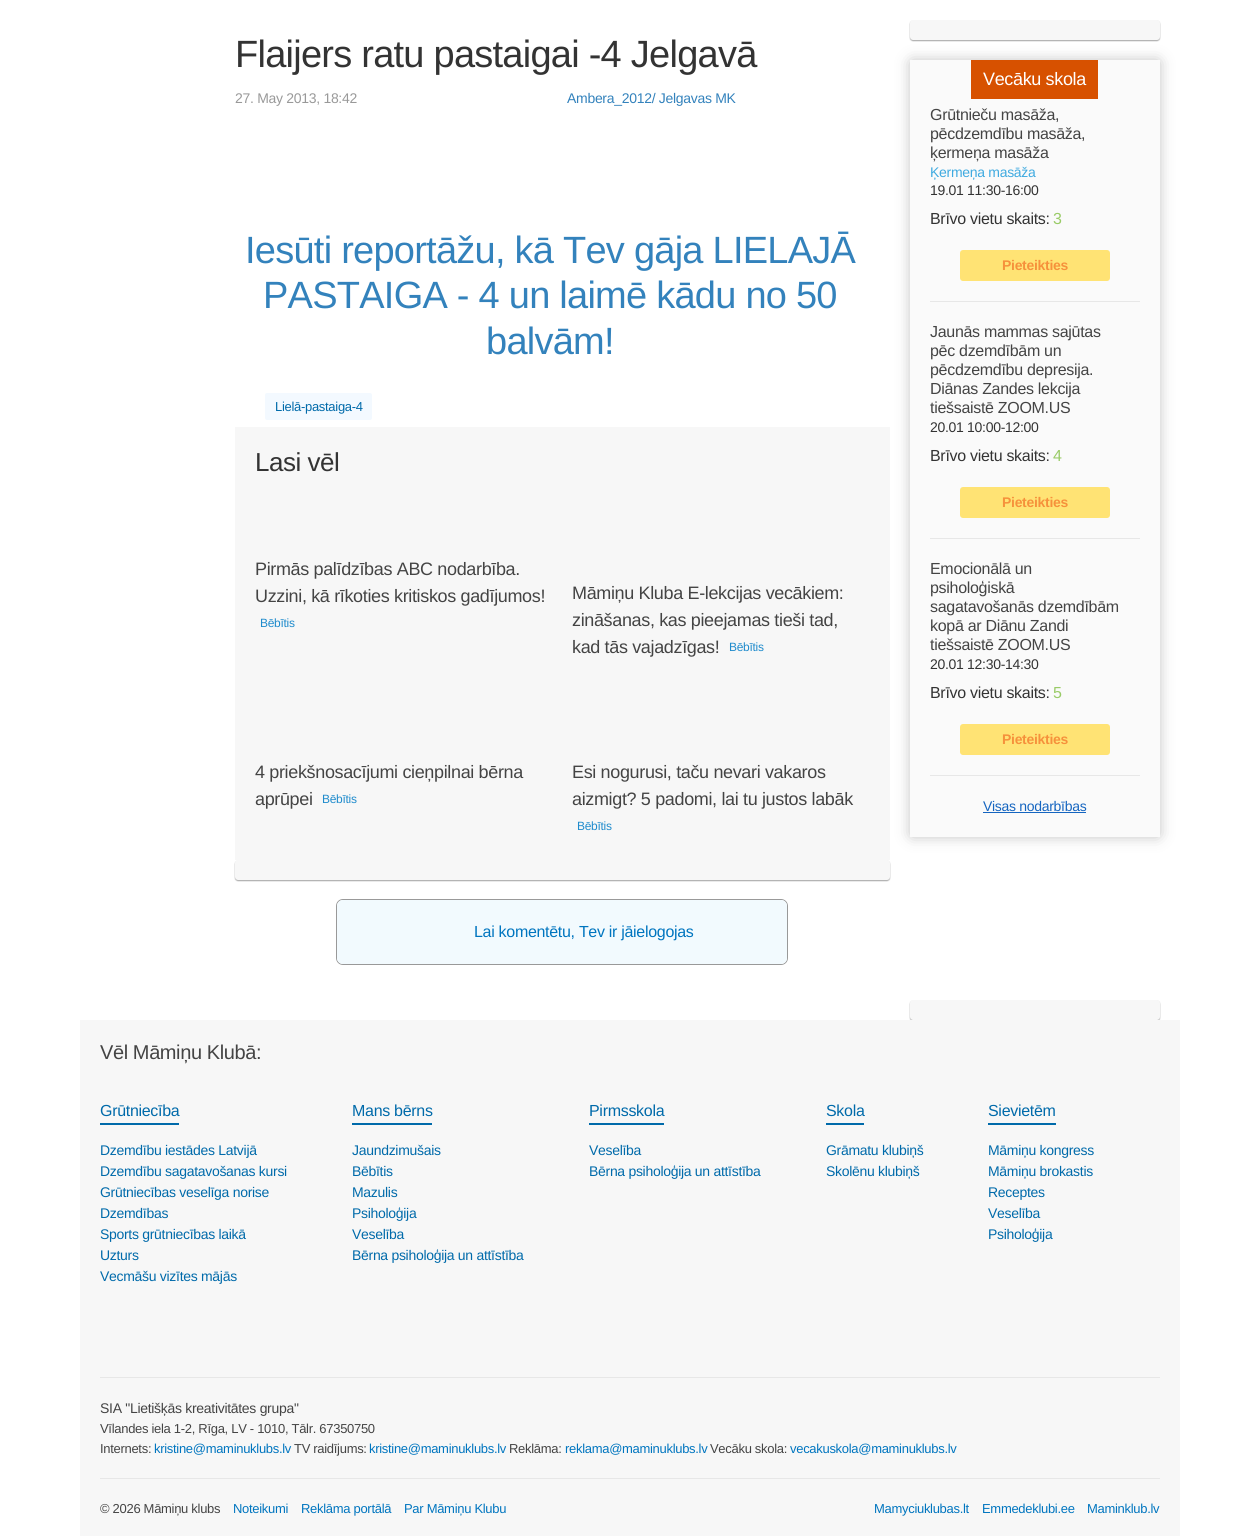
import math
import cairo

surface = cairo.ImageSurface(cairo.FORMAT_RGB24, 1259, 1536)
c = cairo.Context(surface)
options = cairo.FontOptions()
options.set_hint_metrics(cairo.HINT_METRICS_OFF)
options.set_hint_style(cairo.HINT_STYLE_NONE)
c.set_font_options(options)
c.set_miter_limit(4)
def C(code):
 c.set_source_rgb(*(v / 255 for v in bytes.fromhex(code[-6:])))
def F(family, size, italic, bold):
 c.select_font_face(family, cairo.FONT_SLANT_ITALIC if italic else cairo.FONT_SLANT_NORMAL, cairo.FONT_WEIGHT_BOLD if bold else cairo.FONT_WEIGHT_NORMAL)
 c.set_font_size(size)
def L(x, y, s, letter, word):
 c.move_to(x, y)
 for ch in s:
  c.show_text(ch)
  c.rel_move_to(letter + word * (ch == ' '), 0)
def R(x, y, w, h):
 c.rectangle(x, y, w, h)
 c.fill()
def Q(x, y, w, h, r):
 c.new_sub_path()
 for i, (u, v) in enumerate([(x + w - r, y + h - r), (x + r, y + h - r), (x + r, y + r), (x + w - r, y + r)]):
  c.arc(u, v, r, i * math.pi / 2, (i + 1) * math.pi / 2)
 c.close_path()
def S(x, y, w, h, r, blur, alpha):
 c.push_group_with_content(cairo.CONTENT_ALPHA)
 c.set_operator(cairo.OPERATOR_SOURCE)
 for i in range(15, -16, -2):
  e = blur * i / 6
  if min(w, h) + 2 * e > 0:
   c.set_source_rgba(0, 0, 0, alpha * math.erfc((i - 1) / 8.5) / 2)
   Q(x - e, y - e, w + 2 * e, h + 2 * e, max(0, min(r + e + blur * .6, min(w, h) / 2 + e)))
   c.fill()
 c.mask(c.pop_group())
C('ffffff')
c.paint()
F('Liberation Sans',38,0,0)
C('333333')
L(235,67,'Flaijers ratu pastaigai -4 Jelgavā',-.75,0)
F('Liberation Sans',14,0,0)
C('999999')
L(235,103,'27. May 2013, 18:42',-.3,0)
C('3382bc')
L(567,103,'Ambera_2012/ Jelgavas MK',-.3,0)
F('Liberation Sans',38,0,0)
L(245,263,'Iesūti reportāžu, kā Tev gāja LIELAJĀ',-.75,0)
L(263,308,'PASTAIGA - 4 un laimē kādu no 50',-.75,0)
L(486,354,'balvām!',-.75,0)
C('f3f9ff')
Q(265,393,107,27,2)
c.fill()
F('Liberation Sans',13,0,0)
C('006aaa')
L(275,411,'Lielā-pastaiga-4',-.3,0)
C('f7f7f7')
R(235,427,655,433)
F('Liberation Sans',26,0,0)
C('333333')
L(255,471,'Lasi vēl',-.5,0)
F('Liberation Sans',18,0,0)
C('444444')
L(255,575,'Pirmās palīdzības ABC nodarbība.',-.35,0)
L(255,602,'Uzzini, kā rīkoties kritiskos gadījumos!',-.35,0)
F('Liberation Sans',12,0,0)
C('1f8bcc')
L(260,627,'Bēbītis',-.3,0)
F('Liberation Sans',18,0,0)
C('444444')
L(572,599,'Māmiņu Kluba E-lekcijas vecākiem:',-.35,0)
L(572,626,'zināšanas, kas pieejamas tieši tad,',-.35,0)
L(572,653,'kad tās vajadzīgas!',-.35,0)
F('Liberation Sans',12,0,0)
C('1f8bcc')
L(729,651,'Bēbītis',-.3,0)
F('Liberation Sans',18,0,0)
C('444444')
L(255,778,'4 priekšnosacījumi cieņpilnai bērna',-.35,0)
L(255,805,'aprūpei',-.35,0)
F('Liberation Sans',12,0,0)
C('1f8bcc')
L(322,803,'Bēbītis',-.3,0)
F('Liberation Sans',18,0,0)
C('444444')
L(572,778,'Esi nogurusi, taču nevari vakaros',-.35,0)
L(572,805,'aizmigt? 5 padomi, lai tu justos labāk',-.35,0)
F('Liberation Sans',12,0,0)
C('1f8bcc')
L(577,830,'Bēbītis',-.3,0)
C('aaaaaa')
S(235,861,655,20,3,.5,1)
C('f7f7f7')
Q(235,860,655,20,3)
c.fill()
C('aaaaaa')
S(910,21,250,20,3,.5,1)
C('f7f7f7')
Q(910,20,250,20,3)
c.fill()
C('ababab')
S(912,62,246,773,0,7.5,.89)
C('fafafa')
R(910,60,250,777)
C('d75100')
R(971,60,127,39)
F('Liberation Sans',18,0,0)
C('ffffff')
L(983,85,'Vecāku skola',-.35,0)
C('e7e7e7')
R(930,301,210,1)
F('Liberation Sans',16,0,0)
C('444444')
L(930,120,'Grūtnieču masāža,',-.3,0)
L(930,139,'pēcdzemdību masāža,',-.3,0)
L(930,158,'ķermeņa masāža',-.3,0)
F('Liberation Sans',14,0,0)
C('3faae0')
L(930,177,'Ķermeņa masāža',-.3,0)
C('333333')
L(930,195,'19.01 11:30-16:00',-.3,0)
F('Liberation Sans',16,0,0)
L(930,224,'Brīvo vietu skaits:',-.3,0)
C('99cb67')
L(1053,224,'3',-.3,0)
C('ffe374')
Q(960,250,150,31,3)
c.fill()
F('Liberation Sans',14,0,1)
C('f6913b')
L(1002,270,'Pieteikties',-.3,0)
C('e7e7e7')
R(930,538,210,1)
F('Liberation Sans',16,0,0)
C('444444')
L(930,337,'Jaunās mammas sajūtas',-.3,0)
L(930,356,'pēc dzemdībām un',-.3,0)
L(930,375,'pēcdzemdību depresija.',-.3,0)
L(930,394,'Diānas Zandes lekcija',-.3,0)
L(930,413,'tiešsaistē ZOOM.US',-.3,0)
F('Liberation Sans',14,0,0)
C('333333')
L(930,432,'20.01 10:00-12:00',-.3,0)
F('Liberation Sans',16,0,0)
L(930,461,'Brīvo vietu skaits:',-.3,0)
C('99cb67')
L(1053,461,'4',-.3,0)
C('ffe374')
Q(960,487,150,31,3)
c.fill()
F('Liberation Sans',14,0,1)
C('f6913b')
L(1002,507,'Pieteikties',-.3,0)
C('e7e7e7')
R(930,775,210,1)
F('Liberation Sans',16,0,0)
C('444444')
L(930,574,'Emocionālā un',-.3,0)
L(930,593,'psiholoģiskā',-.3,0)
L(930,612,'sagatavošanās dzemdībām',-.3,0)
L(930,631,'kopā ar Diānu Zandi',-.3,0)
L(930,650,'tiešsaistē ZOOM.US',-.3,0)
F('Liberation Sans',14,0,0)
C('333333')
L(930,669,'20.01 12:30-14:30',-.3,0)
F('Liberation Sans',16,0,0)
L(930,698,'Brīvo vietu skaits:',-.3,0)
C('99cb67')
L(1053,698,'5',-.3,0)
C('ffe374')
Q(960,724,150,31,3)
c.fill()
F('Liberation Sans',14,0,1)
C('f6913b')
L(1002,744,'Pieteikties',-.3,0)
F('Liberation Sans',14,0,0)
C('1565c0')
L(983,811,'Visas nodarbības',-.3,0)
R(983,812,103,1)
Q(336.5,899.5,451,65,6.5)
C('999999')
c.set_line_width(1)
c.stroke()
C('f2fafe')
Q(337,900,450,64,6)
c.fill()
F('Liberation Sans',16,0,0)
C('0075bf')
L(474,937,'Lai komentētu, Tev ir jāielogojas',-.3,0)
C('aaaaaa')
S(910,1001,250,20,3,.5,1)
C('f7f7f7')
Q(910,1000,250,20,3)
c.fill()
R(80,1020,1100,516)
F('Liberation Sans',20,0,0)
C('444444')
L(100,1059,'Vēl Māmiņu Klubā:',-.4,0)
C('006aaa')
R(100,1123,79,2)
F('Liberation Sans',16,0,0)
L(100,1116,'Grūtniecība',-.3,0)
F('Liberation Sans',14,0,0)
L(100,1155,'Dzemdību iestādes Latvijā',-.3,0)
L(100,1176,'Dzemdību sagatavošanas kursi',-.3,0)
L(100,1197,'Grūtniecības veselīga norise',-.3,0)
L(100,1218,'Dzemdības',-.3,0)
L(100,1239,'Sports grūtniecības laikā',-.3,0)
L(100,1260,'Uzturs',-.3,0)
L(100,1281,'Vecmāšu vizītes mājās',-.3,0)
R(352,1123,80,2)
F('Liberation Sans',16,0,0)
L(352,1116,'Mans bērns',-.3,0)
F('Liberation Sans',14,0,0)
L(352,1155,'Jaundzimušais',-.3,0)
L(352,1176,'Bēbītis',-.3,0)
L(352,1197,'Mazulis',-.3,0)
L(352,1218,'Psiholoģija',-.3,0)
L(352,1239,'Veselība',-.3,0)
L(352,1260,'Bērna psiholoģija un attīstība',-.3,0)
R(589,1123,75,2)
F('Liberation Sans',16,0,0)
L(589,1116,'Pirmsskola',-.3,0)
F('Liberation Sans',14,0,0)
L(589,1155,'Veselība',-.3,0)
L(589,1176,'Bērna psiholoģija un attīstība',-.3,0)
R(826,1123,38,2)
F('Liberation Sans',16,0,0)
L(826,1116,'Skola',-.3,0)
F('Liberation Sans',14,0,0)
L(826,1155,'Grāmatu klubiņš',-.3,0)
L(826,1176,'Skolēnu klubiņš',-.3,0)
R(988,1123,68,2)
F('Liberation Sans',16,0,0)
L(988,1116,'Sievietēm',-.3,0)
F('Liberation Sans',14,0,0)
L(988,1155,'Māmiņu kongress',-.3,0)
L(988,1176,'Māmiņu brokastis',-.3,0)
L(988,1197,'Receptes',-.3,0)
L(988,1218,'Veselība',-.3,0)
L(988,1239,'Psiholoģija',-.3,0)
C('e7e7e7')
R(100,1377,1060,1)
R(100,1478,1060,1)
C('444444')
L(100,1413,'SIA "Lietišķās kreativitātes grupa"',-.3,0)
F('Liberation Sans',13,0,0)
L(100,1433,'Vīlandes iela 1-2, Rīga, LV - 1010, Tālr. 67350750',-.3,0)
L(100,1453,'Internets:',-.3,0)
C('0075bf')
L(154,1453,'kristine@maminuklubs.lv',-.3,0)
C('444444')
L(294,1453,'TV raidījums:',-.3,0)
C('0075bf')
L(369,1453,'kristine@maminuklubs.lv',-.3,0)
C('444444')
L(509,1453,'Reklāma:',-.3,0)
C('0075bf')
L(565,1453,'reklama@maminuklubs.lv',-.3,0)
C('444444')
L(710,1453,'Vecāku skola:',-.3,0)
C('0075bf')
L(790,1453,'vecakuskola@maminuklubs.lv',-.3,0)
C('444444')
L(100,1513,'© 2026 Māmiņu klubs',-.3,0)
C('0075bf')
L(233,1513,'Noteikumi',-.3,0)
L(301,1513,'Reklāma portālā',-.3,0)
L(404,1513,'Par Māmiņu Klubu',-.3,0)
L(874,1513,'Mamyciuklubas.lt',-.3,0)
L(982,1513,'Emmedeklubi.ee',-.3,0)
L(1087,1513,'Maminklub.lv',-.3,0)
surface.write_to_png('o.png')
